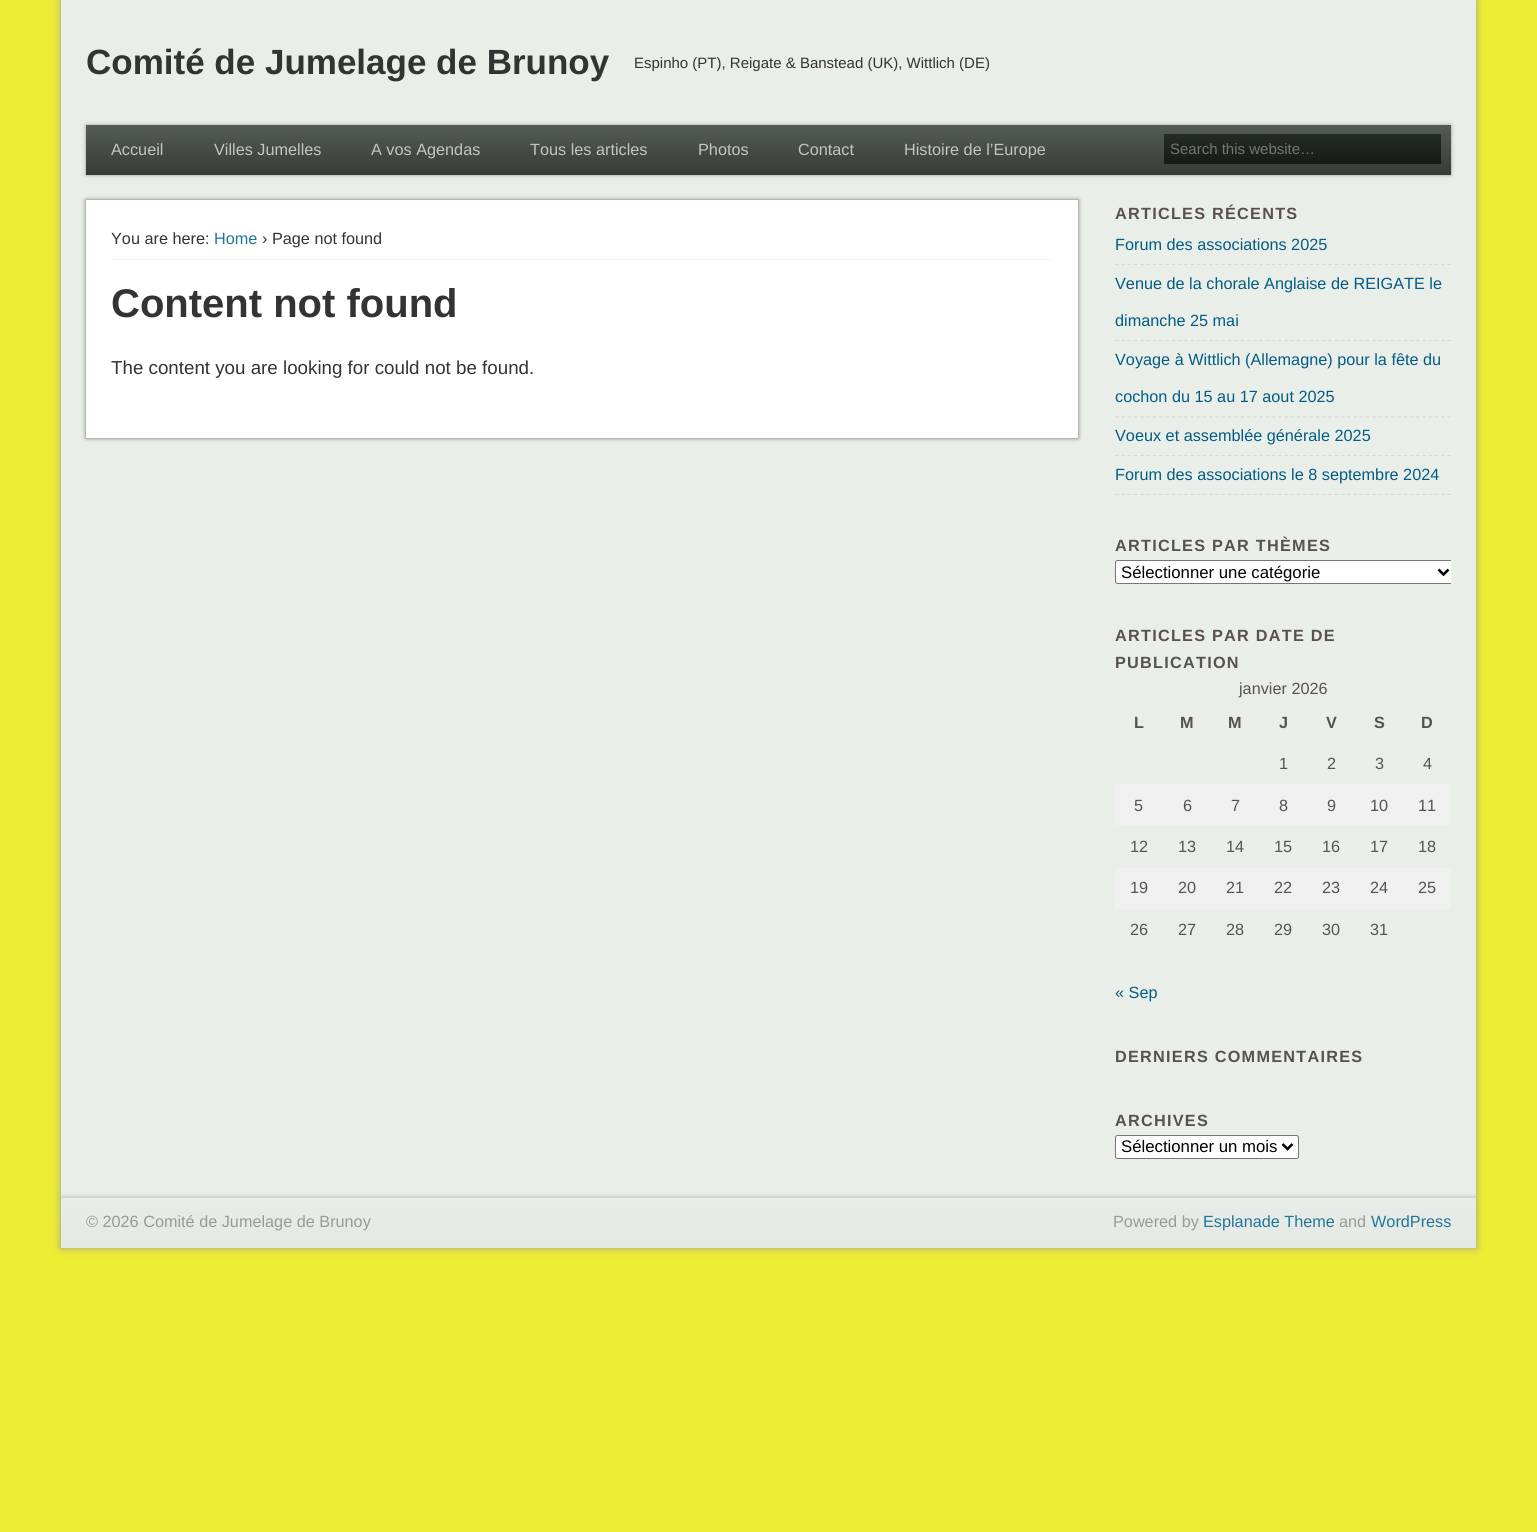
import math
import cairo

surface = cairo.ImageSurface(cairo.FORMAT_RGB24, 1537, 1532)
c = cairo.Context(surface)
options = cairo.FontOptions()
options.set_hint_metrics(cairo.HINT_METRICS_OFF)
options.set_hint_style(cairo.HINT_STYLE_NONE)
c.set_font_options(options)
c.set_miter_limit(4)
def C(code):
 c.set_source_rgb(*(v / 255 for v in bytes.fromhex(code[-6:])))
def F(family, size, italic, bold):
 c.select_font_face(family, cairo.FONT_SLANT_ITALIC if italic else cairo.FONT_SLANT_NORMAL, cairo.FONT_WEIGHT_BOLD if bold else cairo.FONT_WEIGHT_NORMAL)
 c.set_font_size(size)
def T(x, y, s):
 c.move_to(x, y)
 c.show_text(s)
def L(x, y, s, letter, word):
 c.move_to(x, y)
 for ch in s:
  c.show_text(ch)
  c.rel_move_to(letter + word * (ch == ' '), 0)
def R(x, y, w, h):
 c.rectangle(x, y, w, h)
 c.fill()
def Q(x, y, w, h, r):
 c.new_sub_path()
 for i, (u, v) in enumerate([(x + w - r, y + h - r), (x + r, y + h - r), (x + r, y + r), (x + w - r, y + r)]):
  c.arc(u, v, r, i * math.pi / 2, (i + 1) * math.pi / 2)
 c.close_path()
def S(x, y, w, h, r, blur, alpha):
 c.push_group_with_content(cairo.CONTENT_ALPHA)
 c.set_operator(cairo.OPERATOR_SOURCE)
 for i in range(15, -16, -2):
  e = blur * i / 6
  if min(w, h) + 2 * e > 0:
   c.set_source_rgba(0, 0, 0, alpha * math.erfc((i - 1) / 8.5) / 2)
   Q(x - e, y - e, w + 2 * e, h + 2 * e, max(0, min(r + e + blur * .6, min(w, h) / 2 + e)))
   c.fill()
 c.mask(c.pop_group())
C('eded34')
c.paint()
C('999999')
S(61,0,1415,1248,0,4,1)
C('e9eee9')
R(61,0,1415,1198)
F('Liberation Sans',35,0,1)
C('333333')
T(86,74,'Comité de Jumelage de Brunoy')
F('Liberation Sans',15,0,0)
T(634,68,'Espinho (PT), Reigate & Banstead (UK), Wittlich (DE)')
C('999999')
S(86,125,1365,50,0,2,1)
gradient = cairo.LinearGradient(769,125,769,225)
gradient.add_color_stop_rgba(0,0.329,0.361,0.329,1)
gradient.add_color_stop_rgba(.5,0.204,0.235,0.204,1)
gradient.add_color_stop_rgba(.5,0.329,0.361,0.329,1)
gradient.add_color_stop_rgba(1,0.204,0.235,0.204,1)
c.set_source(gradient)
R(86,125,1365,50)
F('Liberation Sans',16.25,0,0)
C('c5c4c4')
T(111,155,'Accueil')
T(214,155,'Villes Jumelles')
T(371,155,'A vos Agendas')
T(530,155,'Tous les articles')
T(698,155,'Photos')
T(798,155,'Contact')
T(904,155,'Histoire de l’Europe')
gradient = cairo.LinearGradient(1303,134,1303,164)
gradient.add_color_stop_rgba(0,0.145,0.173,0.145,1)
gradient.add_color_stop_rgba(1,0.082,0.11,0.082,1)
c.set_source(gradient)
R(1164,134,277,30)
F('Liberation Sans',15,0,0)
C('757575')
T(1170,154,'Search this website…')
C('999999')
S(86,200,992,238,0,2,1)
S(86,200,992,238,0,2,1)
C('ffffff')
R(86,200,992,238)
C('eff3ef')
R(111,259,942,1)
F('Liberation Sans',16.25,0,0)
C('333333')
T(111,244,'You are here:')
C('21759b')
T(214,244,'Home')
C('333333')
T(262,244,'› Page not found')
F('Liberation Sans',40,0,1)
T(111,317,'Content not found')
F('Liberation Sans',18.75,0,0)
T(111,374,'The content you are looking for could not be found.')
F('Liberation Sans',16.25,0,1)
C('585151')
L(1115,219,'ARTICLES RÉCENTS',1.25,0)
c.new_path()
c.move_to(1115,264.5)
c.line_to(1451,264.5)
C('d9d9d9')
c.set_line_width(1.2)
c.set_dash([3.75,2.52])
c.stroke()
F('Liberation Sans',16.25,0,0)
C('035c84')
T(1115,250,'Forum des associations 2025')
c.new_path()
c.move_to(1115,340.5)
c.line_to(1451,340.5)
C('d9d9d9')
c.stroke()
C('035c84')
T(1115,289,'Venue de la chorale Anglaise de REIGATE le')
T(1115,326,'dimanche 25 mai')
c.new_path()
c.move_to(1115,417)
c.line_to(1451,417)
C('d9d9d9')
c.stroke()
C('035c84')
T(1115,365,'Voyage à Wittlich (Allemagne) pour la fête du')
T(1115,402,'cochon du 15 au 17 aout 2025')
c.new_path()
c.move_to(1115,455.5)
c.line_to(1451,455.5)
C('d9d9d9')
c.stroke()
C('035c84')
T(1115,441,'Voeux et assemblée générale 2025')
c.save()
c.rectangle(1115,226,336,269)
c.clip()
c.new_path()
c.move_to(1115,494.5)
c.line_to(1451,494.5)
C('d9d9d9')
c.stroke()
c.restore()
T(1115,480,'Forum des associations le 8 septembre 2024')
F('Liberation Sans',16.25,0,1)
C('585151')
L(1115,551,'ARTICLES PAR THÈMES',1.25,0)
C('ffffff')
c.new_path()
c.move_to(1117.5,560)
c.line_to(1451,560)
c.line_to(1451,584)
c.line_to(1117.5,584)
c.curve_to(1116,584,1115,583,1115,581.5)
c.line_to(1115,562.5)
c.curve_to(1115,561,1116,560,1117.5,560)
c.close_path()
c.fill()
c.save()
c.rectangle(1115,533,336,52)
c.clip()
Q(1115.5,560.5,339,23,2)
C('767676')
c.set_line_width(1)
c.set_dash([])
c.stroke()
c.restore()
c.new_path()
c.move_to(1438.5,569.5)
c.line_to(1443.5,574.5)
c.line_to(1448.5,569.5)
C('000000')
c.set_line_width(2.5)
c.set_dash([])
c.stroke()
F('Liberation Sans',16.75,0,0)
T(1121,578,'Sélectionner une catégorie')
F('Liberation Sans',16.25,0,1)
C('585151')
L(1115,641,'ARTICLES PAR DATE DE',1.25,0)
L(1115,668,'PUBLICATION',1.25,0)
F('Liberation Sans',16.25,0,0)
T(1239,694,'janvier 2026')
F('Liberation Sans',16.25,0,1)
T(1134,728,'L')
T(1180,728,'M')
T(1228,728,'M')
T(1279,728,'J')
T(1326,728,'V')
T(1374,728,'S')
T(1421,728,'D')
F('Liberation Sans',16.25,0,0)
T(1279,769,'1')
T(1327,769,'2')
T(1375,769,'3')
T(1423,769,'4')
C('f0f0f0')
R(1115,784,336,41)
C('585151')
T(1134,811,'5')
T(1183,811,'6')
T(1231,811,'7')
T(1279,811,'8')
T(1327,811,'9')
T(1370,811,'10')
T(1418,811,'11')
T(1130,852,'12')
T(1178,852,'13')
T(1226,852,'14')
T(1274,852,'15')
T(1322,852,'16')
T(1370,852,'17')
T(1418,852,'18')
C('f0f0f0')
R(1115,868,336,41)
C('585151')
T(1130,893,'19')
T(1178,893,'20')
T(1226,893,'21')
T(1274,893,'22')
T(1322,893,'23')
T(1370,893,'24')
T(1418,893,'25')
T(1130,935,'26')
T(1178,935,'27')
T(1226,935,'28')
T(1274,935,'29')
T(1322,935,'30')
T(1370,935,'31')
C('035c84')
T(1115,998,'« Sep')
F('Liberation Sans',16.25,0,1)
C('585151')
L(1115,1062,'DERNIERS COMMENTAIRES',1.25,0)
L(1115,1126,'ARCHIVES',1.25,0)
C('ffffff')
Q(1115.5,1135.5,183,23,2)
c.fill_preserve()
C('767676')
c.set_line_width(1)
c.stroke()
c.new_path()
c.move_to(1282.5,1144)
c.line_to(1287.5,1149)
c.line_to(1292.5,1144)
C('000000')
c.set_line_width(2.5)
c.stroke()
F('Liberation Sans',16.75,0,0)
T(1121,1152,'Sélectionner un mois')
c.save()
c.rectangle(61,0,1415,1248)
c.clip()
C('cccccc')
S(61,1196,1415,50,0,2,1)
c.restore()
gradient = cairo.LinearGradient(769,1197,769,1248)
gradient.add_color_stop_rgba(0,0.914,0.925,0.914,1)
gradient.add_color_stop_rgba(1,0.89,0.914,0.89,1)
c.set_source(gradient)
R(61,1198,1415,50)
F('Liberation Sans',16.25,0,0)
C('999999')
T(86,1227,'© 2026 Comité de Jumelage de Brunoy')
T(1113,1227,'Powered by')
C('21759b')
T(1203,1227,'Esplanade Theme')
C('999999')
T(1339,1227,'and')
C('21759b')
T(1371,1227,'WordPress')
surface.write_to_png('o.png')
